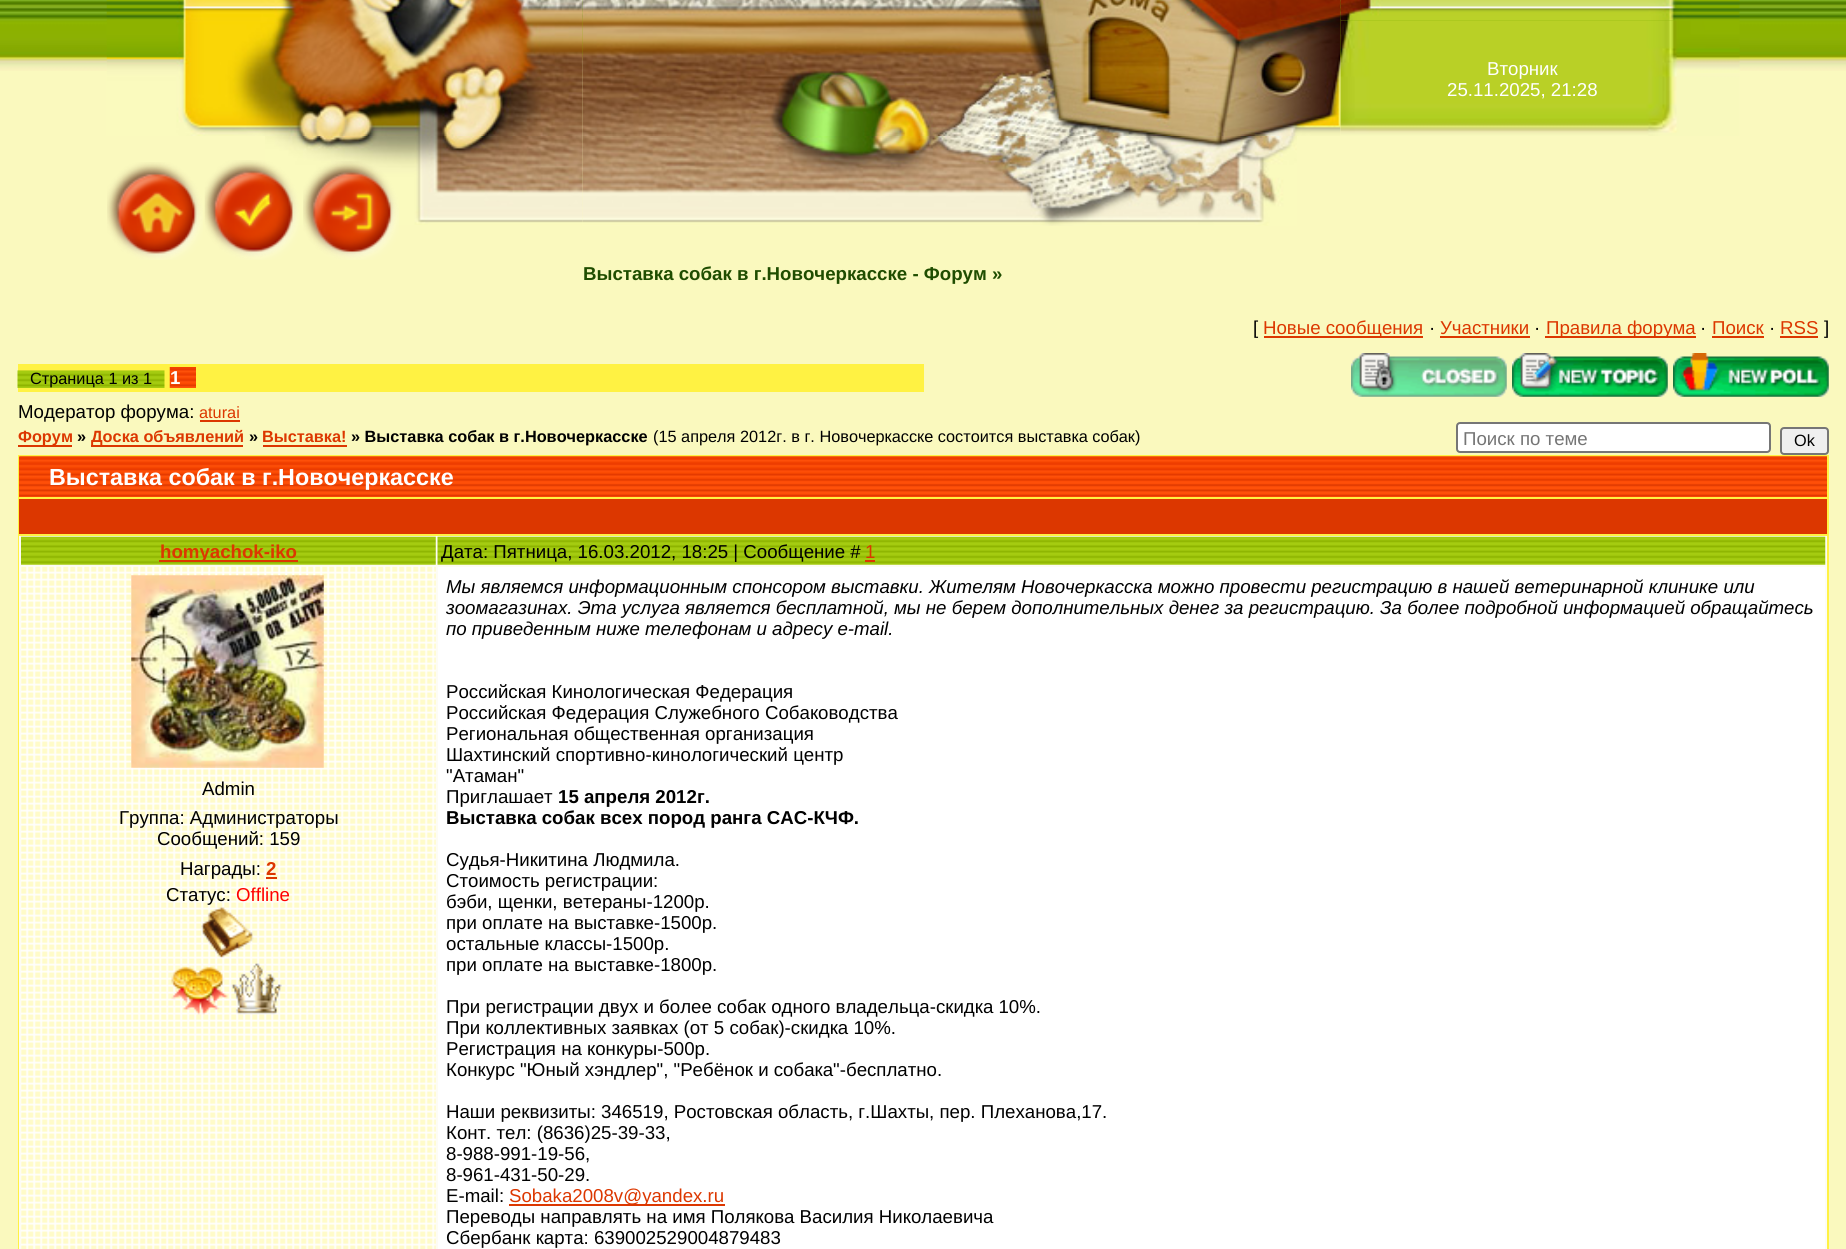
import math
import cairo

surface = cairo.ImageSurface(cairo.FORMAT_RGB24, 1846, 1249)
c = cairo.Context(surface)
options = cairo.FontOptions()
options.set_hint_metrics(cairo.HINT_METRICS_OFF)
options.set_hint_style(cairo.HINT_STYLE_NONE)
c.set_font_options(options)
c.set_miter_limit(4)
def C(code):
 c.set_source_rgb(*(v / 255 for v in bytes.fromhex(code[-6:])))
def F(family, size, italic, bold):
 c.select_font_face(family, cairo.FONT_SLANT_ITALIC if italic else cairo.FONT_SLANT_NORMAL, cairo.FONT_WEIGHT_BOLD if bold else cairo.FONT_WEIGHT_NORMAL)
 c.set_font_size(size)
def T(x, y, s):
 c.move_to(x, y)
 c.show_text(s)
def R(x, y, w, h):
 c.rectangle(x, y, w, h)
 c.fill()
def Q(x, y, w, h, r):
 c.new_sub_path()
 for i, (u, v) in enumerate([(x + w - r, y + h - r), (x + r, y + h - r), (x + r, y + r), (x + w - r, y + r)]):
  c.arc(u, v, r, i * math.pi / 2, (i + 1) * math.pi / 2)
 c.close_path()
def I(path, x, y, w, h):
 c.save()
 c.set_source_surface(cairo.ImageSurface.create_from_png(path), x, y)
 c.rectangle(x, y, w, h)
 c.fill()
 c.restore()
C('faf9be')
c.paint()
I('1.png',0,0,1846,71)
I('2.png',106,0,477,136)
I('3.png',582,0,759,136)
I('4.png',1340,0,400,21)
I('5.png',1340,20,400,116)
F('Liberation Sans',18.67,0,0)
C('ffffff')
T(1487,75,'Вторник')
T(1447,96,'25.11.2025, 21:28')
I('6.png',265,136,318,89)
I('7.png',107,162,96,98)
I('8.png',204,160,96,100)
I('9.png',303,161,96,99)
I('10.png',582,136,715,90)
F('Liberation Sans',18.67,0,1)
C('1f4d00')
T(583,280,'Выставка собак в г.Новочеркасске - Форум »')
F('Liberation Sans',18.67,0,0)
C('000000')
T(1253,334,'[')
C('dc3700')
R(1264,336,159,2)
T(1263,334,'Новые сообщения')
C('000000')
T(1429,334,'·')
C('dc3700')
T(1440,334,'Участники')
R(1440,336,90,2)
C('000000')
T(1534,334,'·')
C('dc3700')
R(1545,336,151,2)
T(1546,334,'Правила форума')
C('000000')
T(1700,334,'·')
C('dc3700')
T(1712,334,'Поиск')
R(1712,336,52,2)
C('000000')
T(1769,334,'·')
C('dc3700')
T(1780,334,'RSS')
R(1780,336,38,2)
C('000000')
T(1824,334,']')
C('fff243')
R(18,364,906,28)
I('11.png',17,370,148,18)
F('Liberation Sans',16.3,0,0)
C('000000')
T(30,384,'Страница 1 из 1')
I('12.png',169,367,27,21)
F('Liberation Sans',18.67,0,1)
C('ffffff')
T(170,384,'1')
I('13.png',1351,353,156,44)
I('14.png',1512,353,156,44)
I('15.png',1673,353,156,44)
F('Liberation Sans',18.67,0,0)
C('000000')
T(18,418,'Модератор форума:')
F('Liberation Sans',16.3,0,0)
C('dc3700')
T(199,418,'aturai')
R(200,420,40,2)
R(18,445,54,2)
F('Liberation Sans',16.3,0,1)
T(18,442,'Форум')
C('000000')
T(77,442,'»')
C('dc3700')
R(91,445,152,2)
T(91,442,'Доска объявлений')
C('000000')
T(249,442,'»')
C('dc3700')
T(262,442,'Выставка!')
R(263,445,84,2)
C('000000')
T(351,442,'» Выставка собак в г.Новочеркасске')
F('Liberation Sans',16.3,0,0)
T(653,442,'(15 апреля 2012г. в г. Новочеркасске состоится выставка собак)')
C('ffffff')
Q(1457,423,313,29,3)
c.fill_preserve()
C('767676')
c.stroke()
F('Liberation Sans',18.67,0,0)
C('757575')
T(1463,445,'Поиск по теме')
C('efefef')
Q(1781,428,47,26,3)
c.fill_preserve()
C('767676')
c.stroke()
F('Liberation Sans',16.3,0,0)
C('000000')
T(1794,446,'Ok')
C('fff243')
R(18,455,1811,794)
C('fb4a02')
R(19,457,1808,40)
I('16.png',19,456,1808,41)
F('Liberation Sans',23.3,0,1)
C('ffffff')
T(49,485,'Выставка собак в г.Новочеркасске')
C('dc3700')
R(19,499,1808,35)
C('fdfcf4')
R(19,536,1808,713)
I('17.png',21,536,415,29)
C('dc3700')
R(159,560,139,2)
F('Liberation Sans',18.67,0,1)
T(160,558,'homyachok-iko')
I('18.png',437,536,1389,29)
F('Liberation Sans',18.67,0,0)
C('000000')
T(441,558,'Дата: Пятница, 16.03.2012, 18:25 | Сообщение #')
C('dc3700')
T(865,558,'1')
R(865,560,10,2)
I('19.png',21,566,415,683)
I('20.png',131,575,193,193)
C('000000')
T(202,795,'Admin')
T(119,824,'Группа: Администраторы')
T(157,845,'Сообщений: 159')
T(180,875,'Награды:')
F('Liberation Sans',18.67,0,1)
C('dc3700')
T(266,875,'2')
R(266,877,11,2)
F('Liberation Sans',18.67,0,0)
C('000000')
T(166,901,'Статус:')
C('ff0000')
T(236,901,'Offline')
I('21.png',201,906,53,52)
I('22.png',171,966,57,49)
I('23.png',231,963,51,52)
C('ffffff')
R(438,567,1387,682)
F('Liberation Sans',18.67,1,0)
C('000000')
T(446,593,'Мы являемся информационным спонсором выставки. Жителям Новочеркасска можно провести регистрацию в нашей ветеринарной клинике или')
T(446,614,'зоомагазинах. Эта услуга является бесплатной, мы не берем дополнительных денег за регистрацию. За более подробной информацией обращайтесь')
T(446,635,'по приведенным ниже телефонам и адресу e-mail.')
F('Liberation Sans',18.67,0,0)
T(446,698,'Российская Кинологическая Федерация')
T(446,719,'Российская Федерация Служебного Собаководства')
T(446,740,'Региональная общественная организация')
T(446,761,'Шахтинский спортивно-кинологический центр')
T(446,782,'"Атаман"')
T(446,803,'Приглашает')
F('Liberation Sans',18.67,0,1)
T(558,803,'15 апреля 2012г.')
T(446,824,'Выставка собак всех пород ранга САС-КЧФ.')
F('Liberation Sans',18.67,0,0)
T(446,866,'Судья-Никитина Людмила.')
T(446,887,'Стоимость регистрации:')
T(446,908,'бэби, щенки, ветераны-1200р.')
T(446,929,'при оплате на выставке-1500р.')
T(446,950,'остальные классы-1500р.')
T(446,971,'при оплате на выставке-1800р.')
T(446,1013,'При регистрации двух и более собак одного владельца-скидка 10%.')
T(446,1034,'При коллективных заявках (от 5 собак)-скидка 10%.')
T(446,1055,'Регистрация на конкуры-500р.')
T(446,1076,'Конкурс "Юный хэндлер", "Ребёнок и собака"-бесплатно.')
T(446,1118,'Наши реквизиты: 346519, Ростовская область, г.Шахты, пер. Плеханова,17.')
T(446,1139,'Конт. тел: (8636)25-39-33,')
T(446,1160,'8-988-991-19-56,')
T(446,1181,'8-961-431-50-29.')
T(446,1202,'E-mail:')
C('dc3700')
R(509,1204,216,2)
T(509,1202,'Sobaka2008v@yandex.ru')
C('000000')
T(446,1223,'Переводы направлять на имя Полякова Василия Николаевича')
T(446,1244,'Сбербанк карта: 639002529004879483')
surface.write_to_png('o.png')
